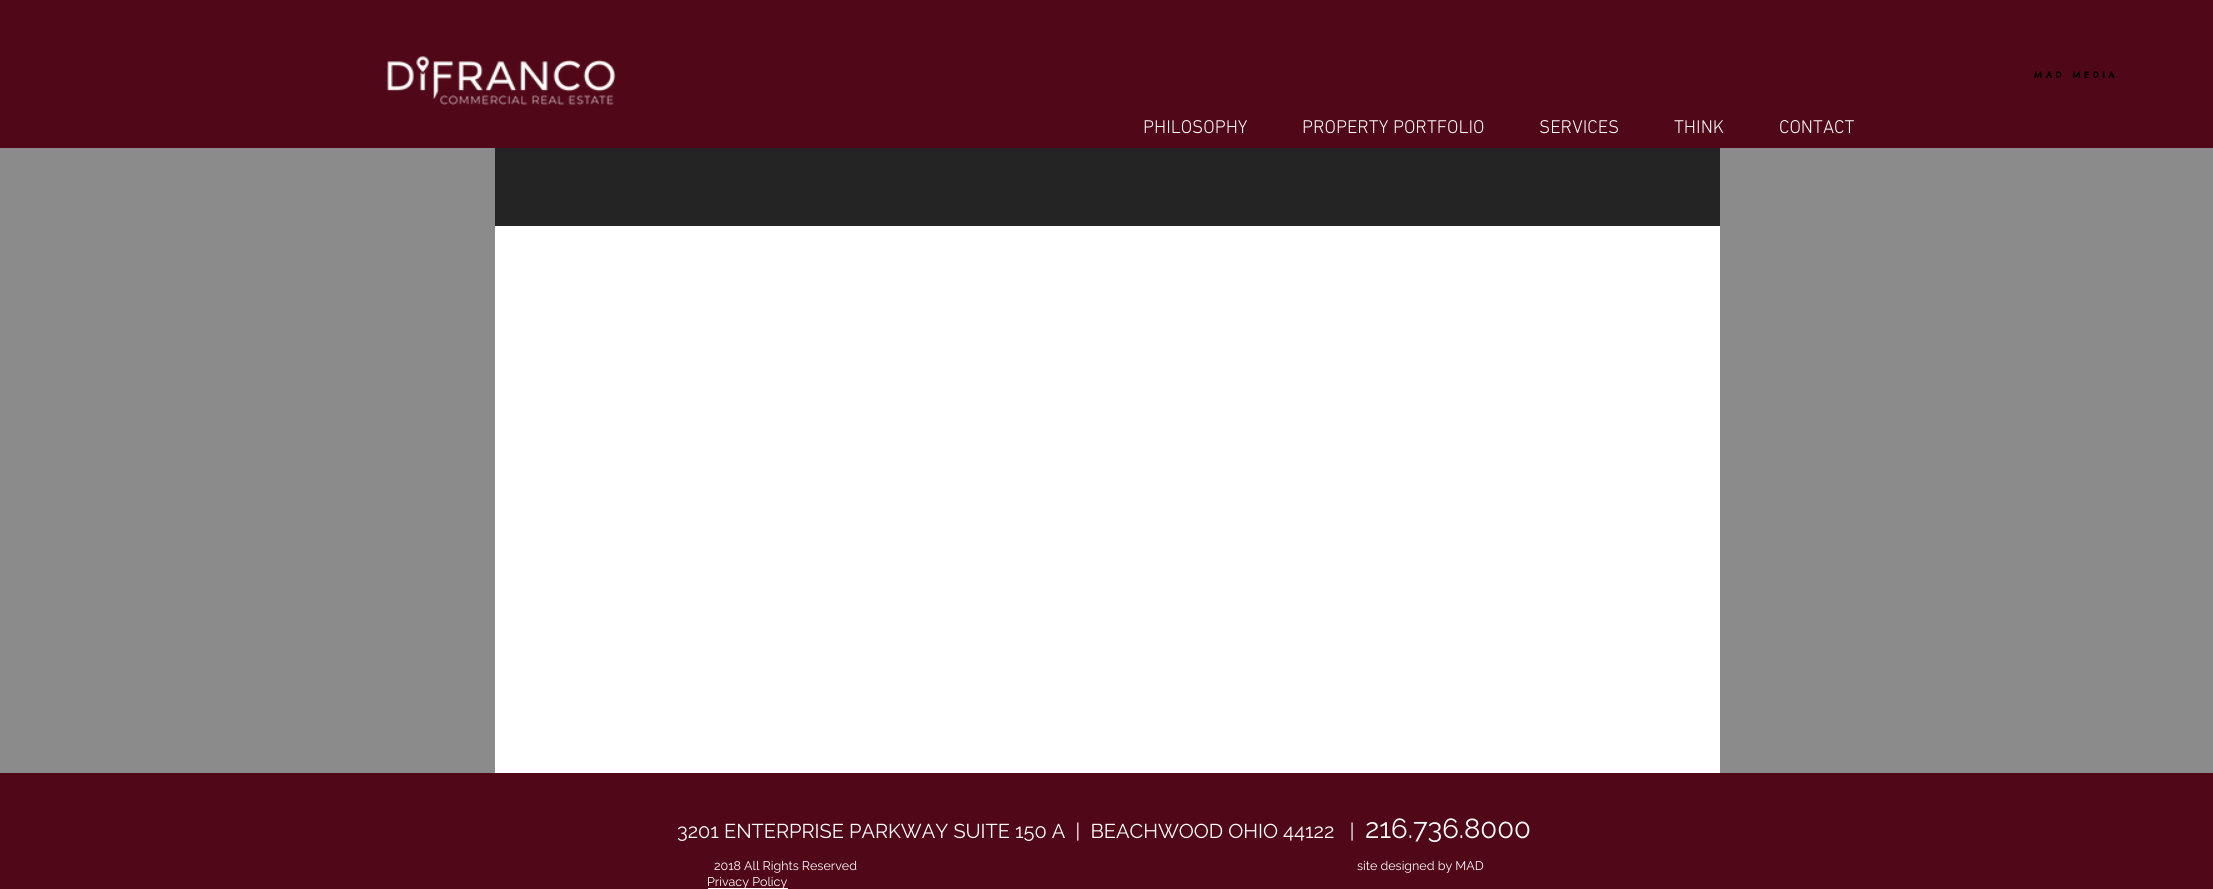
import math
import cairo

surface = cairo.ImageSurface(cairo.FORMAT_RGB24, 2213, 889)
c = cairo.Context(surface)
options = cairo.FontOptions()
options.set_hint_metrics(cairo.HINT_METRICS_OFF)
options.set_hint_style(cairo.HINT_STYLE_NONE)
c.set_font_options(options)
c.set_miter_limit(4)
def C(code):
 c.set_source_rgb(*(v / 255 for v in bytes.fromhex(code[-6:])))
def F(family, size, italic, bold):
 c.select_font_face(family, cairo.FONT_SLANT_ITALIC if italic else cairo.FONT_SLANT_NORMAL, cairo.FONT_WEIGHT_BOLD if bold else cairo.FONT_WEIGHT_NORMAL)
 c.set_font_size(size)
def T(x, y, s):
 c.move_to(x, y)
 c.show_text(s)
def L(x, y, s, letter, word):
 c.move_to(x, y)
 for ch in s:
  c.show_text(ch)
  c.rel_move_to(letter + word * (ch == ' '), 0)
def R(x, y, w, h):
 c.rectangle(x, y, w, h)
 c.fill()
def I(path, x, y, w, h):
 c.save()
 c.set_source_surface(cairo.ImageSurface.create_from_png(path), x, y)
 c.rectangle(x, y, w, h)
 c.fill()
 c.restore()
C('8b8b8b')
c.paint()
C('500718')
R(0,0,2213,148)
I('1.png',387,56,229,50)
F('Chelsea Market',8.75,0,1)
C('000000')
L(2034,78,'MAD MEDIA',3.5,0)
F('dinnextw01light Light',18.75,0,0)
C('ffffff')
T(1143,133,'PHILOSOPHY')
T(1302,133,'PROPERTY PORTFOLIO')
T(1539,133,'SERVICES')
T(1674,133,'THINK')
T(1779,133,'CONTACT')
C('242424')
R(495,148,1225,78)
C('ffffff')
R(495,226,1225,547)
C('500718')
R(0,773,2213,116)
F('Raleway',20,0,0)
C('ffffff')
T(677,838,'3201 ENTERPRISE PARKWAY SUITE 150 A  |  BEACHWOOD OHIO 44122   |')
F('Raleway',27.5,0,0)
T(1365,838,'216.736.8000')
F('Raleway',12.5,0,0)
T(714,870,'2018 All Rights Reserved')
T(1357,870,'site designed by MAD')
R(708,888,80,1)
T(707,886,'Privacy Policy')
surface.write_to_png('o.png')
